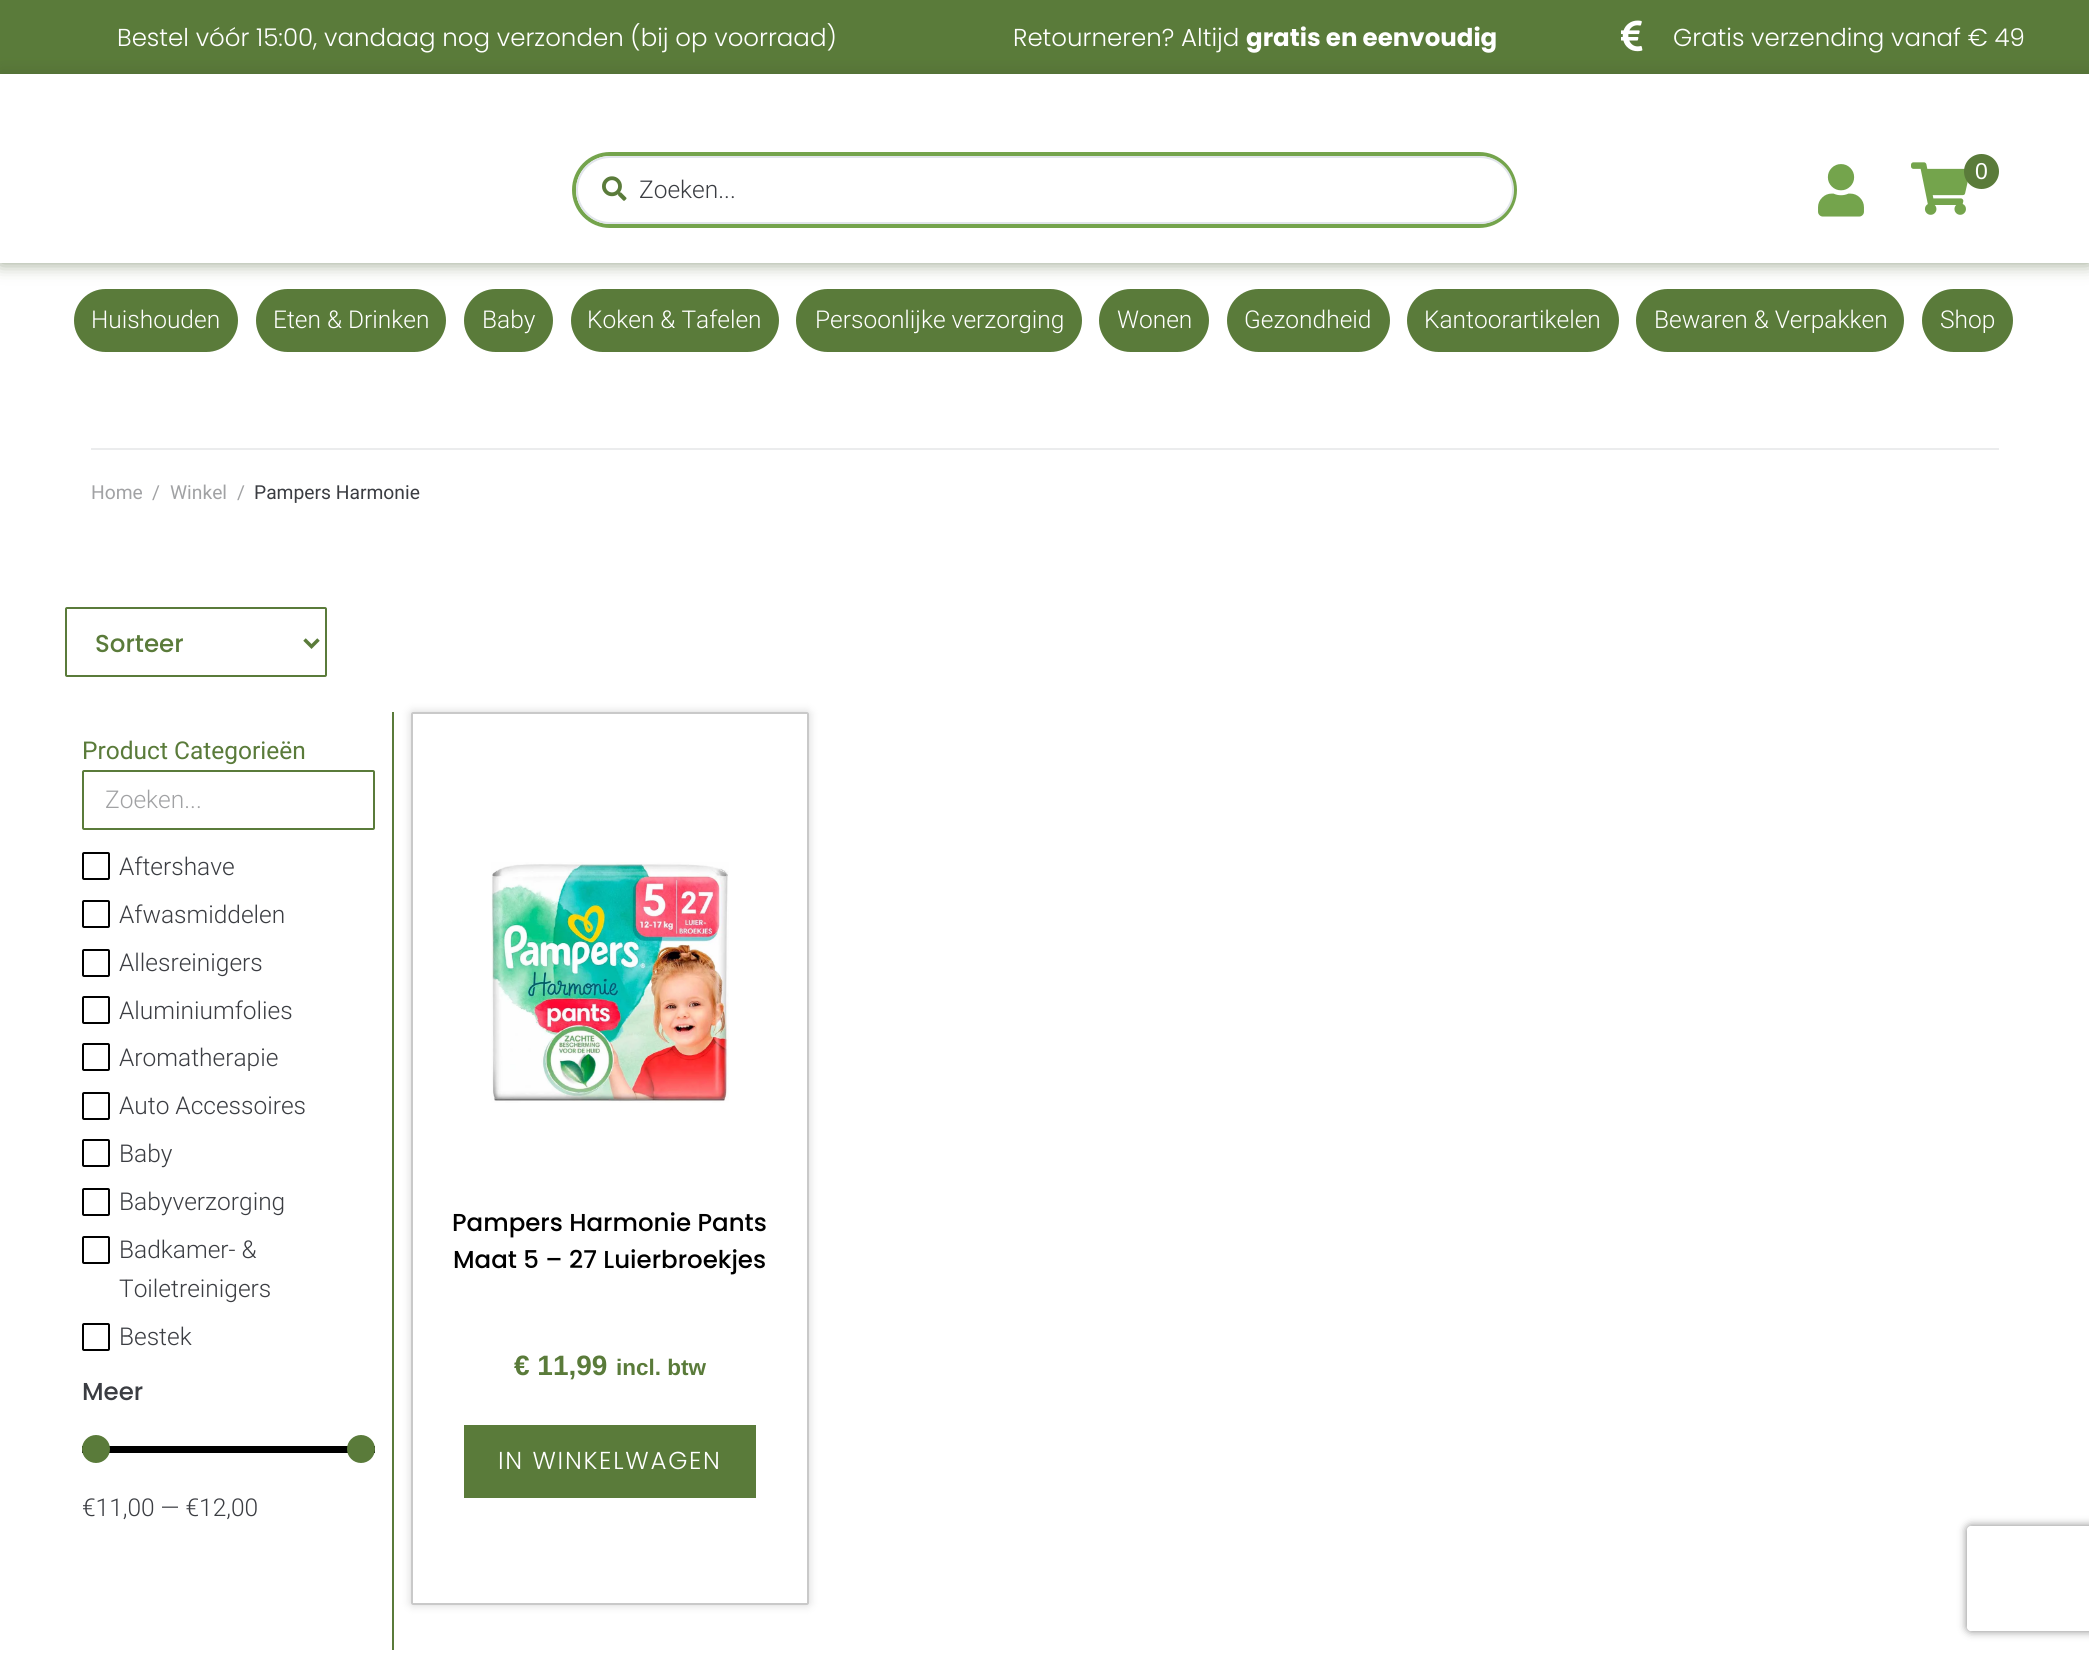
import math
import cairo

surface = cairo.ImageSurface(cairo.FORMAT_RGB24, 2089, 1654)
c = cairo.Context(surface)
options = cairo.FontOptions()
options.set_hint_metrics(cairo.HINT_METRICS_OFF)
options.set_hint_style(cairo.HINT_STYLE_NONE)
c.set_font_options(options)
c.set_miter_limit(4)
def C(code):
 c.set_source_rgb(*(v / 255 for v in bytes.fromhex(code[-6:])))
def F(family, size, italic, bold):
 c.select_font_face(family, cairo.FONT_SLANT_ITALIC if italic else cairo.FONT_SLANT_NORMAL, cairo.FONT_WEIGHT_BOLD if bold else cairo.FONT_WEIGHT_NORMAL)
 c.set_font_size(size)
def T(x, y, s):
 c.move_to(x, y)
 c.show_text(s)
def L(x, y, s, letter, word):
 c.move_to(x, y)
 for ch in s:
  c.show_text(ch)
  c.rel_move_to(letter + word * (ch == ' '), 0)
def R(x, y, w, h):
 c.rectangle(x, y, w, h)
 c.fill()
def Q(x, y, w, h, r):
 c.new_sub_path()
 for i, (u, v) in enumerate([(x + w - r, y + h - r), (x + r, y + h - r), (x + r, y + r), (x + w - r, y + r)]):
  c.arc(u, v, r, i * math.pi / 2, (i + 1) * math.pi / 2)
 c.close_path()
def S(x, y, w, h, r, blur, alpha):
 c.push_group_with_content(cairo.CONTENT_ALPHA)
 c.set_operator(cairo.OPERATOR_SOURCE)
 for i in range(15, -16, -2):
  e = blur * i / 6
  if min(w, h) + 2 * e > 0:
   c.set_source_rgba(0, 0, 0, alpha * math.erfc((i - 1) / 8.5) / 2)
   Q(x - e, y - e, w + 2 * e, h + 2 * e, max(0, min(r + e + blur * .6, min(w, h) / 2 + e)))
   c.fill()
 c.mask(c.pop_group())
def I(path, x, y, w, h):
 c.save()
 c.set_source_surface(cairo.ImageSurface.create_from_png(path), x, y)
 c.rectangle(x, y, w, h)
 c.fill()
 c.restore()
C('ffffff')
c.paint()
C('5a7b3a')
R(0,0,2089,74)
F('Poppins Light',24.5,0,0)
C('ffffff')
T(117,46,'Bestel vóór 15:00, vandaag nog verzonden (bij op voorraad)')
T(1013,46,'Retourneren? Altijd')
F('Poppins',24.5,0,1)
T(1246,46,'gratis en eenvoudig')
I('1.png',1621,20,22,32)
F('Poppins Light',24.5,0,0)
T(1673,46,'Gratis verzending vanaf € 49')
C('5a7b3a')
Q(74,289,164,63,31.5)
c.fill()
Q(256,289,190,63,31.5)
c.fill()
Q(464,289,89,63,31.5)
c.fill()
Q(571,289,208,63,31.5)
c.fill()
Q(796,289,286,63,31.5)
c.fill()
Q(1099,289,110,63,31.5)
c.fill()
Q(1227,289,163,63,31.5)
c.fill()
Q(1407,289,212,63,31.5)
c.fill()
Q(1636,289,268,63,31.5)
c.fill()
Q(1922,289,91,63,31.5)
c.fill()
C('475d31')
S(0,74,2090,189,0,9,.6)
C('ffffff')
R(0,74,2089,189)
I('2.png',1818,164,46,53)
I('3.png',1911,162,57,53)
C('5a7b3a')
c.arc(1981.5,171.5,17.5,0,2 * math.pi)
c.fill()
F('Liberation Sans',23,0,0)
C('ffffff')
T(1975,179,'0')
Q(574,154,941,72,36)
C('74a44c')
c.set_line_width(4)
c.stroke()
C('ffffff')
Q(577,157,936,66,33)
c.fill_preserve()
C('e1e5eb')
c.set_line_width(2)
c.stroke()
I('4.png',602,176,25,25)
F('Roboto Light',24.5,0,0)
C('3b3d42')
T(639,198,'Zoeken...')
C('ffffff')
T(91,328,'Huishouden')
T(273,328,'Eten & Drinken')
T(482,328,'Baby')
T(587,328,'Koken & Tafelen')
T(815,328,'Persoonlijke verzorging')
T(1117,328,'Wonen')
T(1244,328,'Gezondheid')
T(1424,328,'Kantoorartikelen')
T(1654,328,'Bewaren & Verpakken')
T(1940,328,'Shop')
C('ebeced')
R(91,448,1908,2)
F('Roboto',19.25,0,0)
C('a1a2a4')
T(91,499,'Home')
T(152,499,'/')
T(170,499,'Winkel')
T(237,499,'/')
C('3b3d42')
T(254,499,'Pampers Harmonie')
Q(66,608,260,68,1)
C('5a7b3a')
c.stroke()
c.new_path()
c.move_to(304.5,639.5)
c.line_to(311.5,646.5)
c.line_to(318.5,639.5)
c.set_line_width(3.5)
c.stroke()
F('Poppins Medium',24.5,0,0)
T(95,652,'Sorteer')
R(392,712,2,938)
F('Roboto',24.5,0,0)
T(82,759,'Product Categorieën')
Q(83,771,291,58,1)
c.set_line_width(2)
c.stroke()
F('Roboto Light',24.5,0,0)
C('a1a2a4')
T(105,808,'Zoeken...')
Q(83,853,26,26,1)
C('000000')
c.stroke()
C('3b3d42')
T(119,875,'Aftershave')
Q(83,901,26,26,1)
C('000000')
c.stroke()
C('3b3d42')
T(119,923,'Afwasmiddelen')
Q(83,950,26,26,1)
C('000000')
c.stroke()
C('3b3d42')
T(119,971,'Allesreinigers')
Q(83,997,26,26,1)
C('000000')
c.stroke()
C('3b3d42')
T(119,1019,'Aluminiumfolies')
Q(83,1044,26,26,1)
C('000000')
c.stroke()
C('3b3d42')
T(119,1066,'Aromatherapie')
Q(83,1093,26,26,1)
C('000000')
c.stroke()
C('3b3d42')
T(119,1114,'Auto Accessoires')
Q(83,1140,26,26,1)
C('000000')
c.stroke()
C('3b3d42')
T(119,1162,'Baby')
Q(83,1189,26,26,1)
C('000000')
c.stroke()
C('3b3d42')
T(119,1210,'Babyverzorging')
Q(83,1237,26,26,1)
C('000000')
c.stroke()
C('3b3d42')
T(119,1258,'Badkamer- &')
T(119,1297,'Toiletreinigers')
Q(83,1324,26,26,1)
C('000000')
c.stroke()
C('3b3d42')
T(119,1345,'Bestek')
F('Poppins Medium',24.5,0,0)
T(82,1400,'Meer')
C('000000')
R(82,1446,293,7)
C('5a7b3a')
c.new_path()
c.arc(96,1449,14,0,2 * math.pi)
c.fill()
c.arc(361,1449,14,0,2 * math.pi)
c.fill()
F('Roboto Light',24.5,0,0)
C('3b3d42')
T(82,1516,'€11,00 — €12,00')
c.save()
c.set_fill_rule(cairo.FILL_RULE_EVEN_ODD)
c.new_path()
c.move_to(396,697)
c.line_to(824,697)
c.line_to(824,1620)
c.line_to(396,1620)
c.close_path()
c.move_to(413,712)
c.line_to(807,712)
c.curve_to(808,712,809,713,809,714)
c.line_to(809,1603)
c.curve_to(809,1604,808,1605,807,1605)
c.line_to(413,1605)
c.curve_to(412,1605,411,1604,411,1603)
c.line_to(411,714)
c.curve_to(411,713,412,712,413,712)
c.close_path()
c.clip()
C('ababab')
S(411,712,398,893,2,4.5,.5)
c.restore()
Q(412,713,396,891,1)
C('c9c9c9')
c.stroke()
I('5.png',491,862,238,241)
F('Poppins Medium',24.5,0,0)
C('000000')
T(452,1231,'Pampers Harmonie Pants')
T(453,1268,'Maat 5 – 27 Luierbroekjes')
F('Liberation Sans',28,0,1)
C('5a7b3a')
T(514,1375,'€ 11,99')
F('Liberation Sans',22.5,0,1)
T(616,1375,'incl. btw')
R(464,1425,292,73)
F('Poppins Light',24.5,0,0)
C('ffffff')
L(498,1469,'IN WINKELWAGEN',1.75,0)
c.save()
c.set_fill_rule(cairo.FILL_RULE_EVEN_ODD)
c.new_path()
c.move_to(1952,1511)
c.line_to(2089,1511)
c.line_to(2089,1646)
c.line_to(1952,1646)
c.close_path()
c.move_to(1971,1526)
c.line_to(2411,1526)
c.curve_to(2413,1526,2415,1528,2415,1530)
c.line_to(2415,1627)
c.curve_to(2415,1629,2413,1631,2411,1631)
c.line_to(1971,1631)
c.curve_to(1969,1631,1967,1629,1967,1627)
c.line_to(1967,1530)
c.curve_to(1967,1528,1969,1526,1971,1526)
c.close_path()
c.clip()
C('808080')
S(1967,1526,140,105,4,4.5,1)
c.restore()
surface.write_to_png('o.png')
